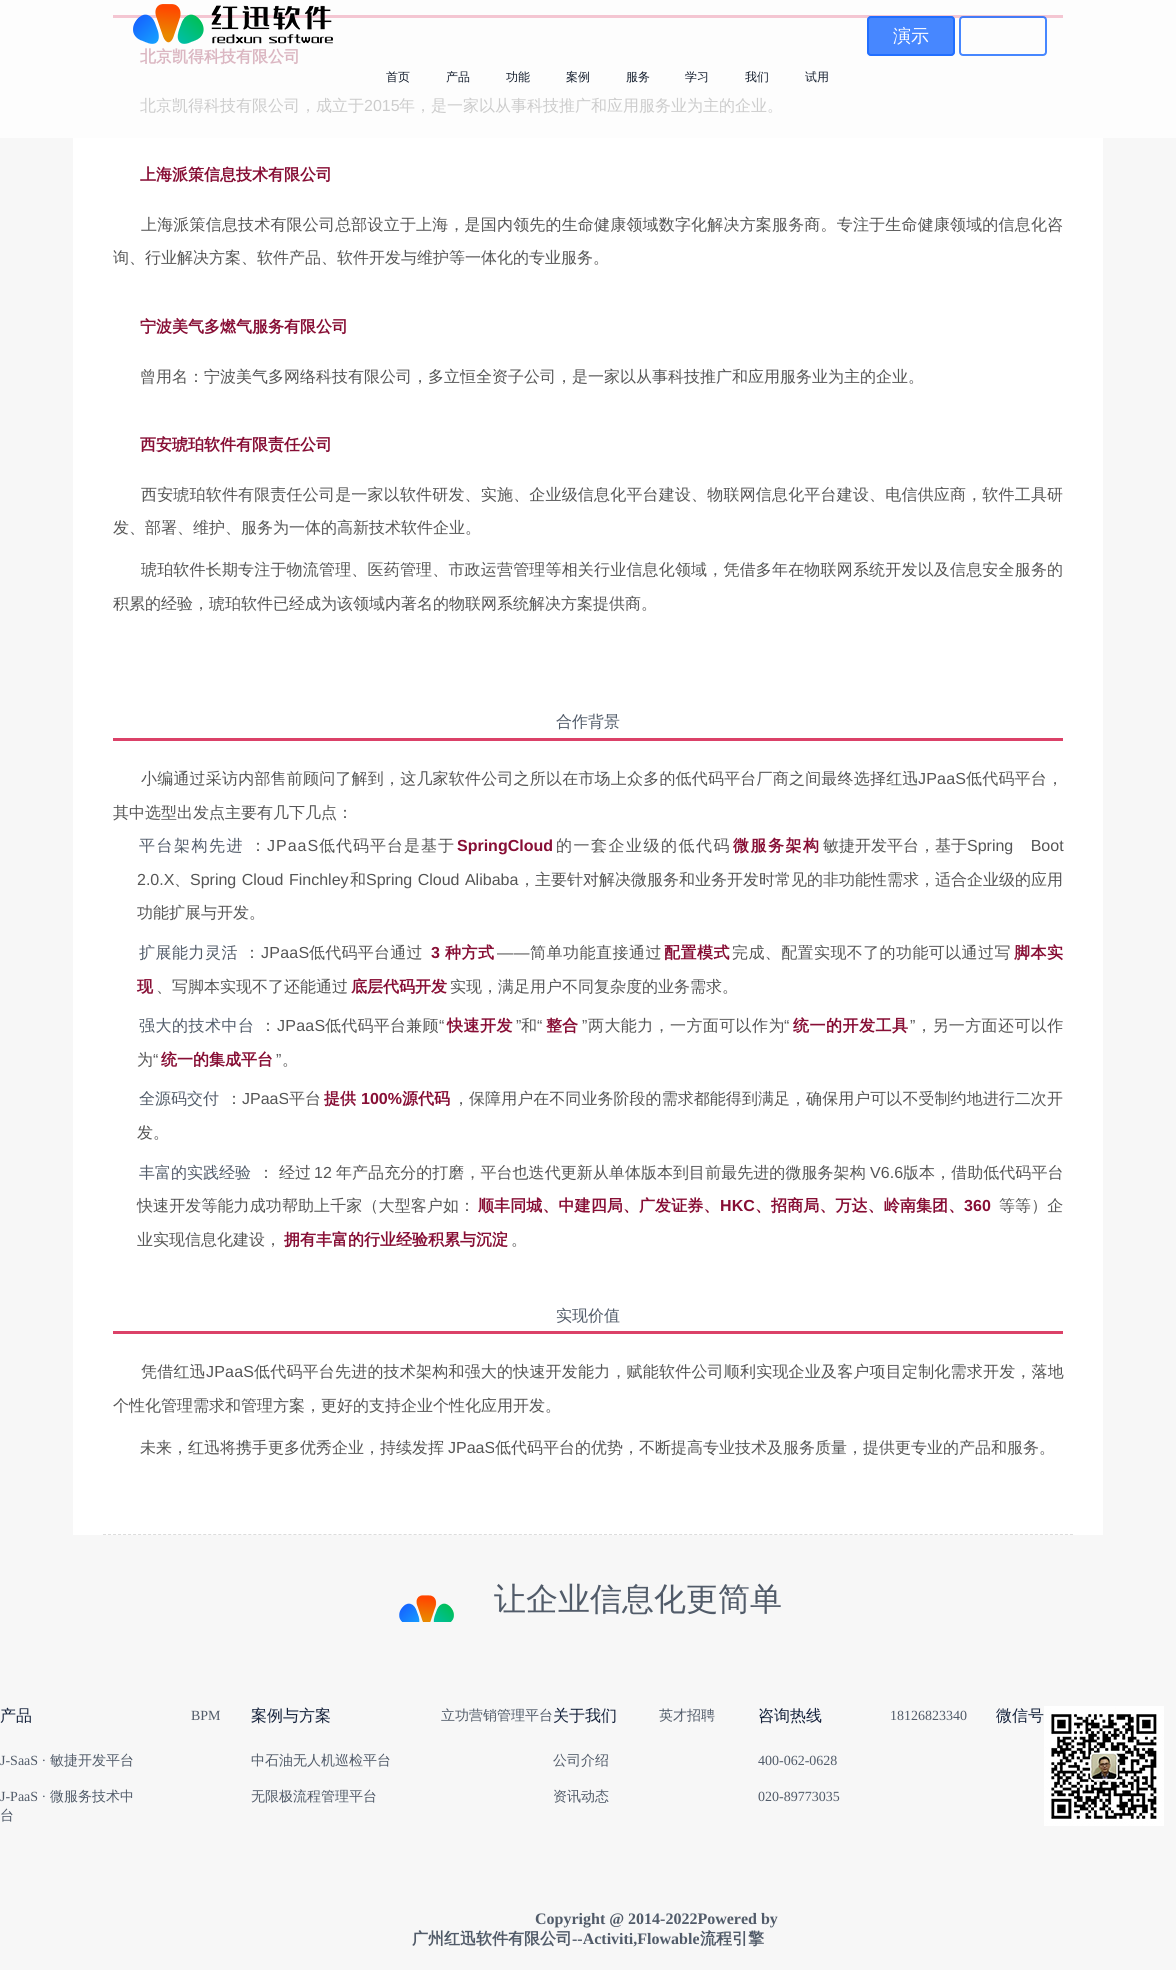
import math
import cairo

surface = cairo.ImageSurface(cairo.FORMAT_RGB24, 1176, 1970)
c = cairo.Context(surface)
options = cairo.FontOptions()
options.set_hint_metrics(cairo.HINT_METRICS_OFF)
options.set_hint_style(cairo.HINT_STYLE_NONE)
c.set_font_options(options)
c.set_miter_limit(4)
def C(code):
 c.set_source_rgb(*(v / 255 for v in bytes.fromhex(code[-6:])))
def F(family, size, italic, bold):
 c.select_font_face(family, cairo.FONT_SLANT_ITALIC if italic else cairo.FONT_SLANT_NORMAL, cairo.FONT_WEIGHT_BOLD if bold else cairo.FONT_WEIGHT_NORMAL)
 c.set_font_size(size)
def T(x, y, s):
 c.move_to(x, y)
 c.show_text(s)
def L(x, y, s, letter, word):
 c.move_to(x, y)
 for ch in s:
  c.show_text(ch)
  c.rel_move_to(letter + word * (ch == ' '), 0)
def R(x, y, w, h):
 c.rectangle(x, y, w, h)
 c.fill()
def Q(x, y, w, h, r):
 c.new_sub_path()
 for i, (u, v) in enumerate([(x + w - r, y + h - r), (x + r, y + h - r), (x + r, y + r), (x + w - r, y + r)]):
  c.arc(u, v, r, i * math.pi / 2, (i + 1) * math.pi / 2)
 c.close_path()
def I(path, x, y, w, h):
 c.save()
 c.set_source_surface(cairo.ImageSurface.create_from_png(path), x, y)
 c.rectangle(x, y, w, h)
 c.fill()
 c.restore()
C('f7f7f7')
c.paint()
C('fdfdfd')
R(0,0,1176,138)
C('f4c6d2')
R(113,15,950,3)
I('1.png',133,4,200,40)
c.set_source_rgba(0.102,0.412,1,0.8)
Q(867,16,88,40,4)
c.fill()
Q(868,17,86,38,3)
c.stroke()
F('WenQuanYi Zen Hei Medium',18,0,0)
C('ffffff')
T(893,42,'演示')
Q(960,17,86,38,3)
c.set_source_rgba(0.102,0.412,1,0.8)
c.stroke()
F('WenQuanYi Zen Hei Medium',12,0,0)
C('131d2d')
T(386,81,'首页')
T(446,81,'产品')
T(506,81,'功能')
T(566,81,'案例')
T(626,81,'服务')
T(685,81,'学习')
T(745,81,'我们')
T(805,81,'试用')
C('ffffff')
R(73,138,1030,1397)
c.new_path()
c.move_to(103,1534.5)
c.line_to(1073,1534.5)
C('dddddd')
c.set_line_width(1)
c.set_dash([3,2.01])
c.stroke()
F('WenQuanYi Zen Hei',16,0,1)
C('dbb7c2')
T(140,62,'北京凯得科技有限公司')
F('WenQuanYi Zen Hei Medium',16,0,0)
C('cccccc')
T(140,111,'北京凯得科技有限公司，成立于')
F('Liberation Sans',16,0,0)
T(364,111,'2015')
F('WenQuanYi Zen Hei Medium',16,0,0)
T(399,111,'年，是一家以从事科技推广和应用服务业为主的企业。')
F('WenQuanYi Zen Hei',16,0,1)
C('870e35')
T(140,180,'上海派策信息技术有限公司')
F('WenQuanYi Zen Hei Medium',16,0,0)
C('555555')
L(141,230,'上海派策信息技术有限公司总部设立于上海，是国内领先的生命健康领域数字化解决方案服务商。专注于生命健康领域的信息化咨',.18,0)
T(113,263,'询、行业解决方案、软件产品、软件开发与维护等一体化的专业服务。')
F('WenQuanYi Zen Hei',16,0,1)
C('870e35')
T(140,332,'宁波美气多燃气服务有限公司')
F('WenQuanYi Zen Hei Medium',16,0,0)
C('555555')
T(140,382,'曾用名：宁波美气多网络科技有限公司，多立恒全资子公司，是一家以从事科技推广和应用服务业为主的企业。')
F('WenQuanYi Zen Hei',16,0,1)
C('870e35')
T(140,450,'西安琥珀软件有限责任公司')
F('WenQuanYi Zen Hei Medium',16,0,0)
C('555555')
L(141,500,'西安琥珀软件有限责任公司是一家以软件研发、实施、企业级信息化平台建设、物联网信息化平台建设、电信供应商，软件工具研',.18,0)
T(113,533,'发、部署、维护、服务为一体的高新技术软件企业。')
L(141,575,'琥珀软件长期专注于物流管理、医药管理、市政运营管理等相关行业信息化领域，凭借多年在物联网系统开发以及信息安全服务的',.18,0)
T(113,609,'积累的经验，琥珀软件已经成为该领域内著名的物联网系统解决方案提供商。')
C('db4168')
R(113,738,950,3)
C('515b69')
T(556,727,'合作背景')
C('555555')
L(141,784,'小编通过采访内部售前顾问了解到，这几家软件公司之所以在市场上众多的低代码平台厂商之间最终选择红迅',.2,0)
F('Liberation Sans',16,0,0)
L(918,784,'JPaaS',.2,0)
F('WenQuanYi Zen Hei Medium',16,0,0)
L(966,784,'低代码平台，',.2,0)
T(113,818,'其中选型出发点主要有几下几点：')
C('515b69')
L(139,851,'平台架构先进',1.5,0)
C('555555')
L(250,851,'：',1,0)
F('Liberation Sans',16,0,0)
L(267,851,'JPaaS',1,0)
F('WenQuanYi Zen Hei Medium',16,0,0)
L(319,851,'低代码平台是基于',1,0)
F('Liberation Sans',16,0,1)
C('870e35')
T(457,851,'SpringCloud')
F('WenQuanYi Zen Hei Medium',16,0,0)
C('555555')
L(556,851,'的一套企业级的低代码',1.5,0)
F('WenQuanYi Zen Hei',16,0,1)
C('870e35')
L(733,851,'微服务架构',1.5,0)
F('WenQuanYi Zen Hei Medium',16,0,0)
C('555555')
T(823,851,'敏捷开发平台，基于')
F('Liberation Sans',16,0,0)
L(967,851,'Spring Boot',0,13)
T(137,885,'2.0.X')
F('WenQuanYi Zen Hei Medium',16,0,0)
T(174,885,'、')
F('Liberation Sans',16,0,0)
L(190,885,'Spring Cloud Finchley',0,1)
F('WenQuanYi Zen Hei Medium',16,0,0)
T(350,885,'和')
F('Liberation Sans',16,0,0)
L(366,885,'Spring Cloud Alibaba',0,1)
F('WenQuanYi Zen Hei Medium',16,0,0)
T(519,885,'，主要针对解决微服务和业务开发时常见的非功能性需求，适合企业级的应用')
T(137,918,'功能扩展与开发。')
C('515b69')
L(139,958,'扩展能力灵活',.5,0)
C('555555')
L(244,958,'：',.25,0)
F('Liberation Sans',16,0,0)
L(261,958,'JPaaS',.25,0)
F('WenQuanYi Zen Hei Medium',16,0,0)
L(309,958,'低代码平台通过',.25,0)
F('Liberation Sans',16,0,1)
C('870e35')
L(431,958,'3',.5,0)
F('WenQuanYi Zen Hei',16,0,1)
L(445,958,'种方式',.5,0)
F('Liberation Sans',16,0,0)
C('555555')
L(497,958,'——',.5,0)
F('WenQuanYi Zen Hei Medium',16,0,0)
L(530,958,'简单功能直接通过',.5,0)
F('WenQuanYi Zen Hei',16,0,1)
C('870e35')
L(664,958,'配置模式',.5,0)
F('WenQuanYi Zen Hei Medium',16,0,0)
C('555555')
L(732,958,'完成、配置实现不了的功能可以通过写',.4,0)
F('WenQuanYi Zen Hei',16,0,1)
C('870e35')
L(1014,958,'脚本实',.5,0)
T(137,992,'现')
F('WenQuanYi Zen Hei Medium',16,0,0)
C('555555')
T(156,992,'、写脚本实现不了还能通过')
F('WenQuanYi Zen Hei',16,0,1)
C('870e35')
T(351,992,'底层代码开发')
F('WenQuanYi Zen Hei Medium',16,0,0)
C('555555')
T(450,992,'实现，满足用户不同复杂度的业务需求。')
C('515b69')
L(139,1031,'强大的技术中台',.5,0)
C('555555')
L(260,1031,'：',.25,0)
F('Liberation Sans',16,0,0)
L(277,1031,'JPaaS',.25,0)
F('WenQuanYi Zen Hei Medium',16,0,0)
L(325,1031,'低代码平台兼顾',.25,0)
F('Liberation Sans',16,0,0)
L(439,1031,'“',.25,0)
F('WenQuanYi Zen Hei',16,0,1)
C('870e35')
L(447,1031,'快速开发',.5,0)
F('Liberation Sans',16,0,0)
C('555555')
T(516,1031,'”')
F('WenQuanYi Zen Hei Medium',16,0,0)
T(521,1031,'和')
F('Liberation Sans',16,0,0)
T(537,1031,'“')
F('WenQuanYi Zen Hei',16,0,1)
C('870e35')
T(546,1031,'整合')
F('Liberation Sans',16,0,0)
C('555555')
L(582,1031,'”',.4,0)
F('WenQuanYi Zen Hei Medium',16,0,0)
L(588,1031,'两大能力，一方面可以作为',.4,0)
F('Liberation Sans',16,0,0)
L(784,1031,'“',.4,0)
F('WenQuanYi Zen Hei',16,0,1)
C('870e35')
L(793,1031,'统一的开发工具',.5,0)
F('Liberation Sans',16,0,0)
C('555555')
L(910,1031,'”',.4,0)
F('WenQuanYi Zen Hei Medium',16,0,0)
L(916,1031,'，另一方面还可以作',.4,0)
T(137,1065,'为')
F('Liberation Sans',16,0,0)
T(153,1065,'“')
F('WenQuanYi Zen Hei',16,0,1)
C('870e35')
T(161,1065,'统一的集成平台')
F('Liberation Sans',16,0,0)
C('555555')
T(276,1065,'”')
F('WenQuanYi Zen Hei Medium',16,0,0)
T(282,1065,'。')
C('515b69')
T(139,1104,'全源码交付')
C('555555')
T(226,1104,'：')
F('Liberation Sans',16,0,0)
T(242,1104,'JPaaS')
F('WenQuanYi Zen Hei Medium',16,0,0)
T(289,1104,'平台')
F('WenQuanYi Zen Hei',16,0,1)
C('870e35')
T(324,1104,'提供')
F('Liberation Sans',16,0,1)
T(361,1104,'100%')
F('WenQuanYi Zen Hei',16,0,1)
T(402,1104,'源代码')
F('WenQuanYi Zen Hei Medium',16,0,0)
C('555555')
L(453,1104,'，保障用户在不同业务阶段的需求都能得到满足，确保用户可以不受制约地进行二次开',.05,0)
T(137,1138,'发。')
C('515b69')
T(139,1178,'丰富的实践经验')
C('555555')
L(258,1178,'： 经过',.05,0)
F('Liberation Sans',16,0,0)
L(314,1178,'12',.05,0)
F('WenQuanYi Zen Hei Medium',16,0,0)
L(336,1178,'年产品充分的打磨，平台也迭代更新从单体版本到目前最先进的微服务架构',.05,0)
F('Liberation Sans',16,0,0)
L(870,1178,'V6.6',.05,0)
F('WenQuanYi Zen Hei Medium',16,0,0)
L(903,1178,'版本，借助低代码平台',.05,0)
L(137,1211,'快速开发等能力成功帮助上千家（大型客户如：',.1,0)
F('WenQuanYi Zen Hei',16,0,1)
C('870e35')
L(478,1211,'顺丰同城、中建四局、广发证券、',.1,0)
F('Liberation Sans',16,0,1)
L(720,1211,'HKC',.1,0)
F('WenQuanYi Zen Hei',16,0,1)
L(755,1211,'、招商局、万达、岭南集团、',.1,0)
F('Liberation Sans',16,0,1)
L(964,1211,'360',.1,0)
F('WenQuanYi Zen Hei Medium',16,0,0)
C('555555')
L(999,1211,'等等）企',.1,0)
T(137,1245,'业实现信息化建设，')
F('WenQuanYi Zen Hei',16,0,1)
C('870e35')
T(284,1245,'拥有丰富的行业经验积累与沉淀')
F('WenQuanYi Zen Hei Medium',16,0,0)
C('555555')
T(511,1245,'。')
C('db4168')
R(113,1331,950,3)
C('515b69')
T(556,1321,'实现价值')
C('555555')
L(141,1377,'凭借红迅',.2,0)
F('Liberation Sans',16,0,0)
L(206,1377,'JPaaS',.2,0)
F('WenQuanYi Zen Hei Medium',16,0,0)
L(254,1377,'低代码平台先进的技术架构和强大的快速开发能力，赋能软件公司顺利实现企业及客户项目定制化需求开发，落地',.2,0)
T(113,1411,'个性化管理需求和管理方案，更好的支持企业个性化应用开发。')
T(140,1453,'未来，红迅将携手更多优秀企业，持续发挥')
F('Liberation Sans',16,0,0)
T(448,1453,'JPaaS')
F('WenQuanYi Zen Hei Medium',16,0,0)
T(495,1453,'低代码平台的优势，不断提高专业技术及服务质量，提供更专业的产品和服务。')
I('2.png',399,1595,55,27)
F('WenQuanYi Zen Hei Medium',32,0,0)
C('515b69')
T(494,1610,'让企业信息化更简单')
F('WenQuanYi Zen Hei Medium',16,0,0)
C('13203a')
T(0,1721,'产品')
F('Liberation Serif',14,0,0)
C('515b69')
T(191,1720,'BPM')
T(0,1765,'J-SaaS ·')
F('WenQuanYi Zen Hei Medium',14,0,0)
T(50,1765,'敏捷开发平台')
F('Liberation Serif',14,0,0)
T(0,1801,'J-PaaS ·')
F('WenQuanYi Zen Hei Medium',14,0,0)
T(50,1801,'微服务技术中')
T(0,1820,'台')
F('WenQuanYi Zen Hei Medium',16,0,0)
C('13203a')
T(251,1721,'案例与方案')
F('WenQuanYi Zen Hei Medium',14,0,0)
C('515b69')
T(441,1720,'立功营销管理平台')
T(251,1765,'中石油无人机巡检平台')
T(251,1801,'无限极流程管理平台')
F('WenQuanYi Zen Hei Medium',16,0,0)
C('13203a')
T(553,1721,'关于我们')
F('WenQuanYi Zen Hei Medium',14,0,0)
C('515b69')
T(659,1720,'英才招聘')
T(553,1765,'公司介绍')
T(553,1801,'资讯动态')
F('WenQuanYi Zen Hei Medium',16,0,0)
C('13203a')
T(758,1721,'咨询热线')
F('Liberation Serif',14,0,0)
C('515b69')
T(890,1720,'18126823340')
T(758,1765,'400-062-0628')
T(758,1801,'020-89773035')
F('WenQuanYi Zen Hei Medium',16,0,0)
C('13203a')
T(996,1721,'微信号')
I('3.png',1044,1706,120,120)
F('Liberation Serif',16,0,1)
C('515b69')
T(535,1924,'Copyright @ 2014-2022Powered by')
F('WenQuanYi Zen Hei',16,0,1)
T(412,1944,'广州红迅软件有限公司')
F('Liberation Serif',16,0,1)
T(572,1944,'--Activiti,Flowable')
F('WenQuanYi Zen Hei',16,0,1)
T(700,1944,'流程引擎')
surface.write_to_png('o.png')
